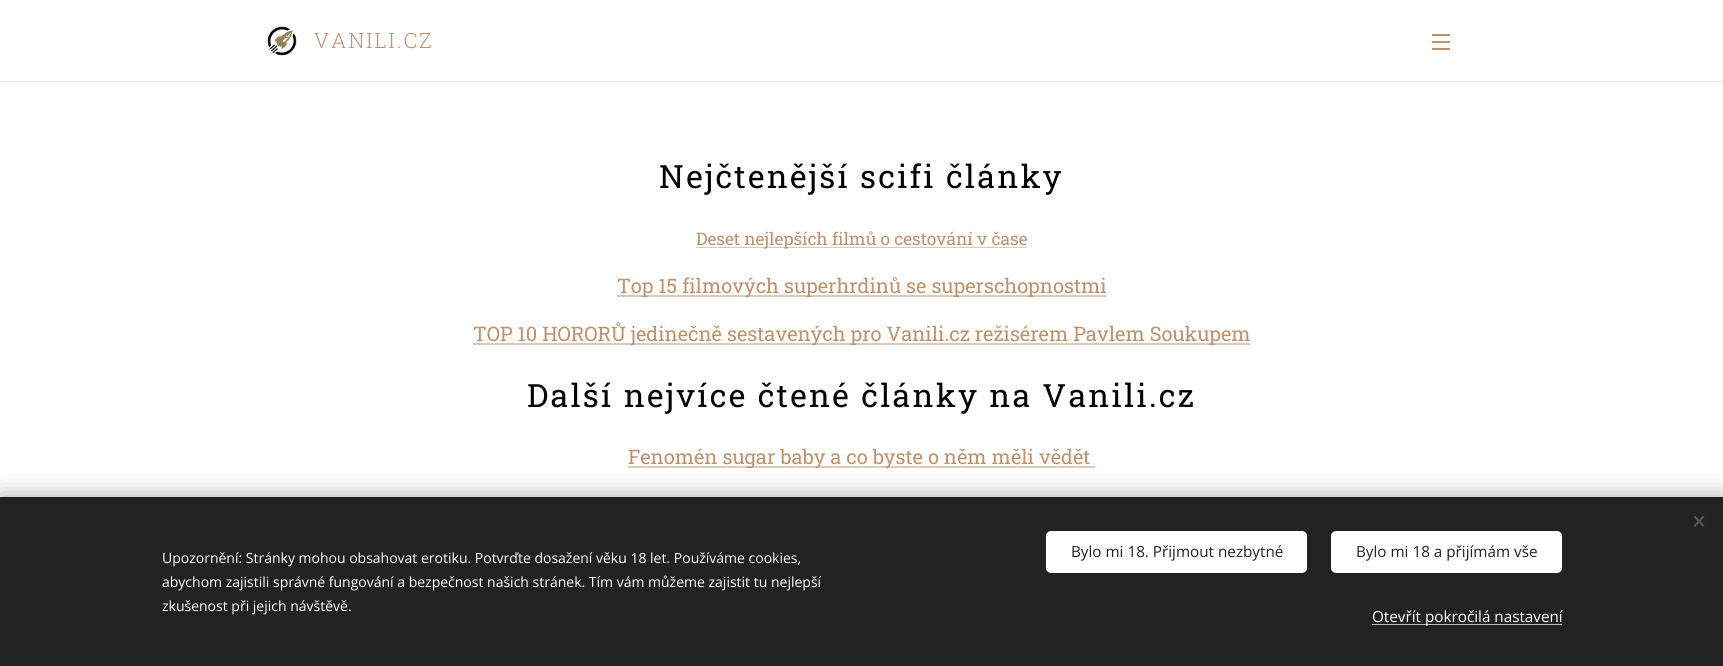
import math
import cairo

surface = cairo.ImageSurface(cairo.FORMAT_RGB24, 1723, 666)
c = cairo.Context(surface)
options = cairo.FontOptions()
options.set_hint_metrics(cairo.HINT_METRICS_OFF)
options.set_hint_style(cairo.HINT_STYLE_NONE)
c.set_font_options(options)
c.set_miter_limit(4)
def C(code):
 c.set_source_rgb(*(v / 255 for v in bytes.fromhex(code[-6:])))
def F(family, size, italic, bold):
 c.select_font_face(family, cairo.FONT_SLANT_ITALIC if italic else cairo.FONT_SLANT_NORMAL, cairo.FONT_WEIGHT_BOLD if bold else cairo.FONT_WEIGHT_NORMAL)
 c.set_font_size(size)
def T(x, y, s):
 c.move_to(x, y)
 c.show_text(s)
def L(x, y, s, letter, word):
 c.move_to(x, y)
 for ch in s:
  c.show_text(ch)
  c.rel_move_to(letter + word * (ch == ' '), 0)
def R(x, y, w, h):
 c.rectangle(x, y, w, h)
 c.fill()
def Q(x, y, w, h, r):
 c.new_sub_path()
 for i, (u, v) in enumerate([(x + w - r, y + h - r), (x + r, y + h - r), (x + r, y + r), (x + w - r, y + r)]):
  c.arc(u, v, r, i * math.pi / 2, (i + 1) * math.pi / 2)
 c.close_path()
def S(x, y, w, h, r, blur, alpha):
 c.push_group_with_content(cairo.CONTENT_ALPHA)
 c.set_operator(cairo.OPERATOR_SOURCE)
 for i in range(15, -16, -2):
  e = blur * i / 6
  if min(w, h) + 2 * e > 0:
   c.set_source_rgba(0, 0, 0, alpha * math.erfc((i - 1) / 8.5) / 2)
   Q(x - e, y - e, w + 2 * e, h + 2 * e, max(0, min(r + e + blur * .6, min(w, h) / 2 + e)))
   c.fill()
 c.mask(c.pop_group())
def I(path, x, y, w, h):
 c.save()
 c.set_source_surface(cairo.ImageSurface.create_from_png(path), x, y)
 c.rectangle(x, y, w, h)
 c.fill()
 c.restore()
C('ffffff')
c.paint()
I('1.png',267,26,30,30)
F('Roboto Slab Light',21,0,0)
C('bd926d')
L(314,48,'VANILI.CZ',2,0)
R(1432,41,18,2)
R(1432,34,18,2)
R(1432,48,18,2)
C('e8e8e8')
R(0,81,1723,1)
F('Roboto Slab',32,0,0)
C('030303')
L(659,188,'Nejčtenější scifi články',2.25,0)
C('dec9b6')
R(696,247,331,1)
F('Roboto Slab',17.25,0,0)
C('bd926d')
T(696,245,'Deset nejlepších filmů o cestování v čase')
C('dec9b6')
R(617,295,489,2)
F('Roboto Slab',20,0,0)
C('bd926d')
T(617,293,'Top 15 filmových superhrdinů se superschopnostmi')
C('dec9b6')
R(473,343,777,2)
C('bd926d')
T(473,341,'TOP 10 HORORŮ jedinečně sestavených pro Vanili.cz režisérem Pavlem Soukupem')
F('Roboto Slab',32,0,0)
C('030303')
L(527,407,'Další nejvíce čtené články na Vanili.cz',2.25,0)
C('dec9b6')
R(628,466,467,2)
F('Roboto Slab',20,0,0)
C('bd926d')
T(628,464,'Fenomén sugar baby a co byste o něm měli vědět')
C('000000')
S(0,497,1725,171,0,12.5,.33)
C('222222')
R(0,497,1723,169)
C('555555')
c.new_path()
c.move_to(1693.5,525.5)
c.line_to(1703,515.5)
c.line_to(1704.5,517)
c.line_to(1695,527)
c.close_path()
c.fill()
c.new_path()
c.move_to(1695,515.5)
c.line_to(1704.5,525.5)
c.line_to(1703,527)
c.line_to(1693.5,517)
c.close_path()
c.fill()
F('Open Sans',14,0,0)
C('ffffff')
T(162,563,'Upozornění: Stránky mohou obsahovat erotiku. Potvrďte dosažení věku 18 let. Používáme cookies,')
T(162,587,'abychom zajistili správné fungování a bezpečnost našich stránek. Tím vám můžeme zajistit tu nejlepší')
T(162,611,'zkušenost při jejich návštěvě.')
Q(1046,531,261,42,5)
c.fill()
F('Open Sans',15.25,0,0)
C('222222')
T(1071,557,'Bylo mi 18. Přijmout nezbytné')
C('ffffff')
Q(1331,531,231,42,5)
c.fill()
C('222222')
T(1356,557,'Bylo mi 18 a přijímám vše')
C('bdbdbd')
R(1372,624,190,1)
C('ffffff')
T(1372,622,'Otevřít pokročilá nastavení')
surface.write_to_png('o.png')
